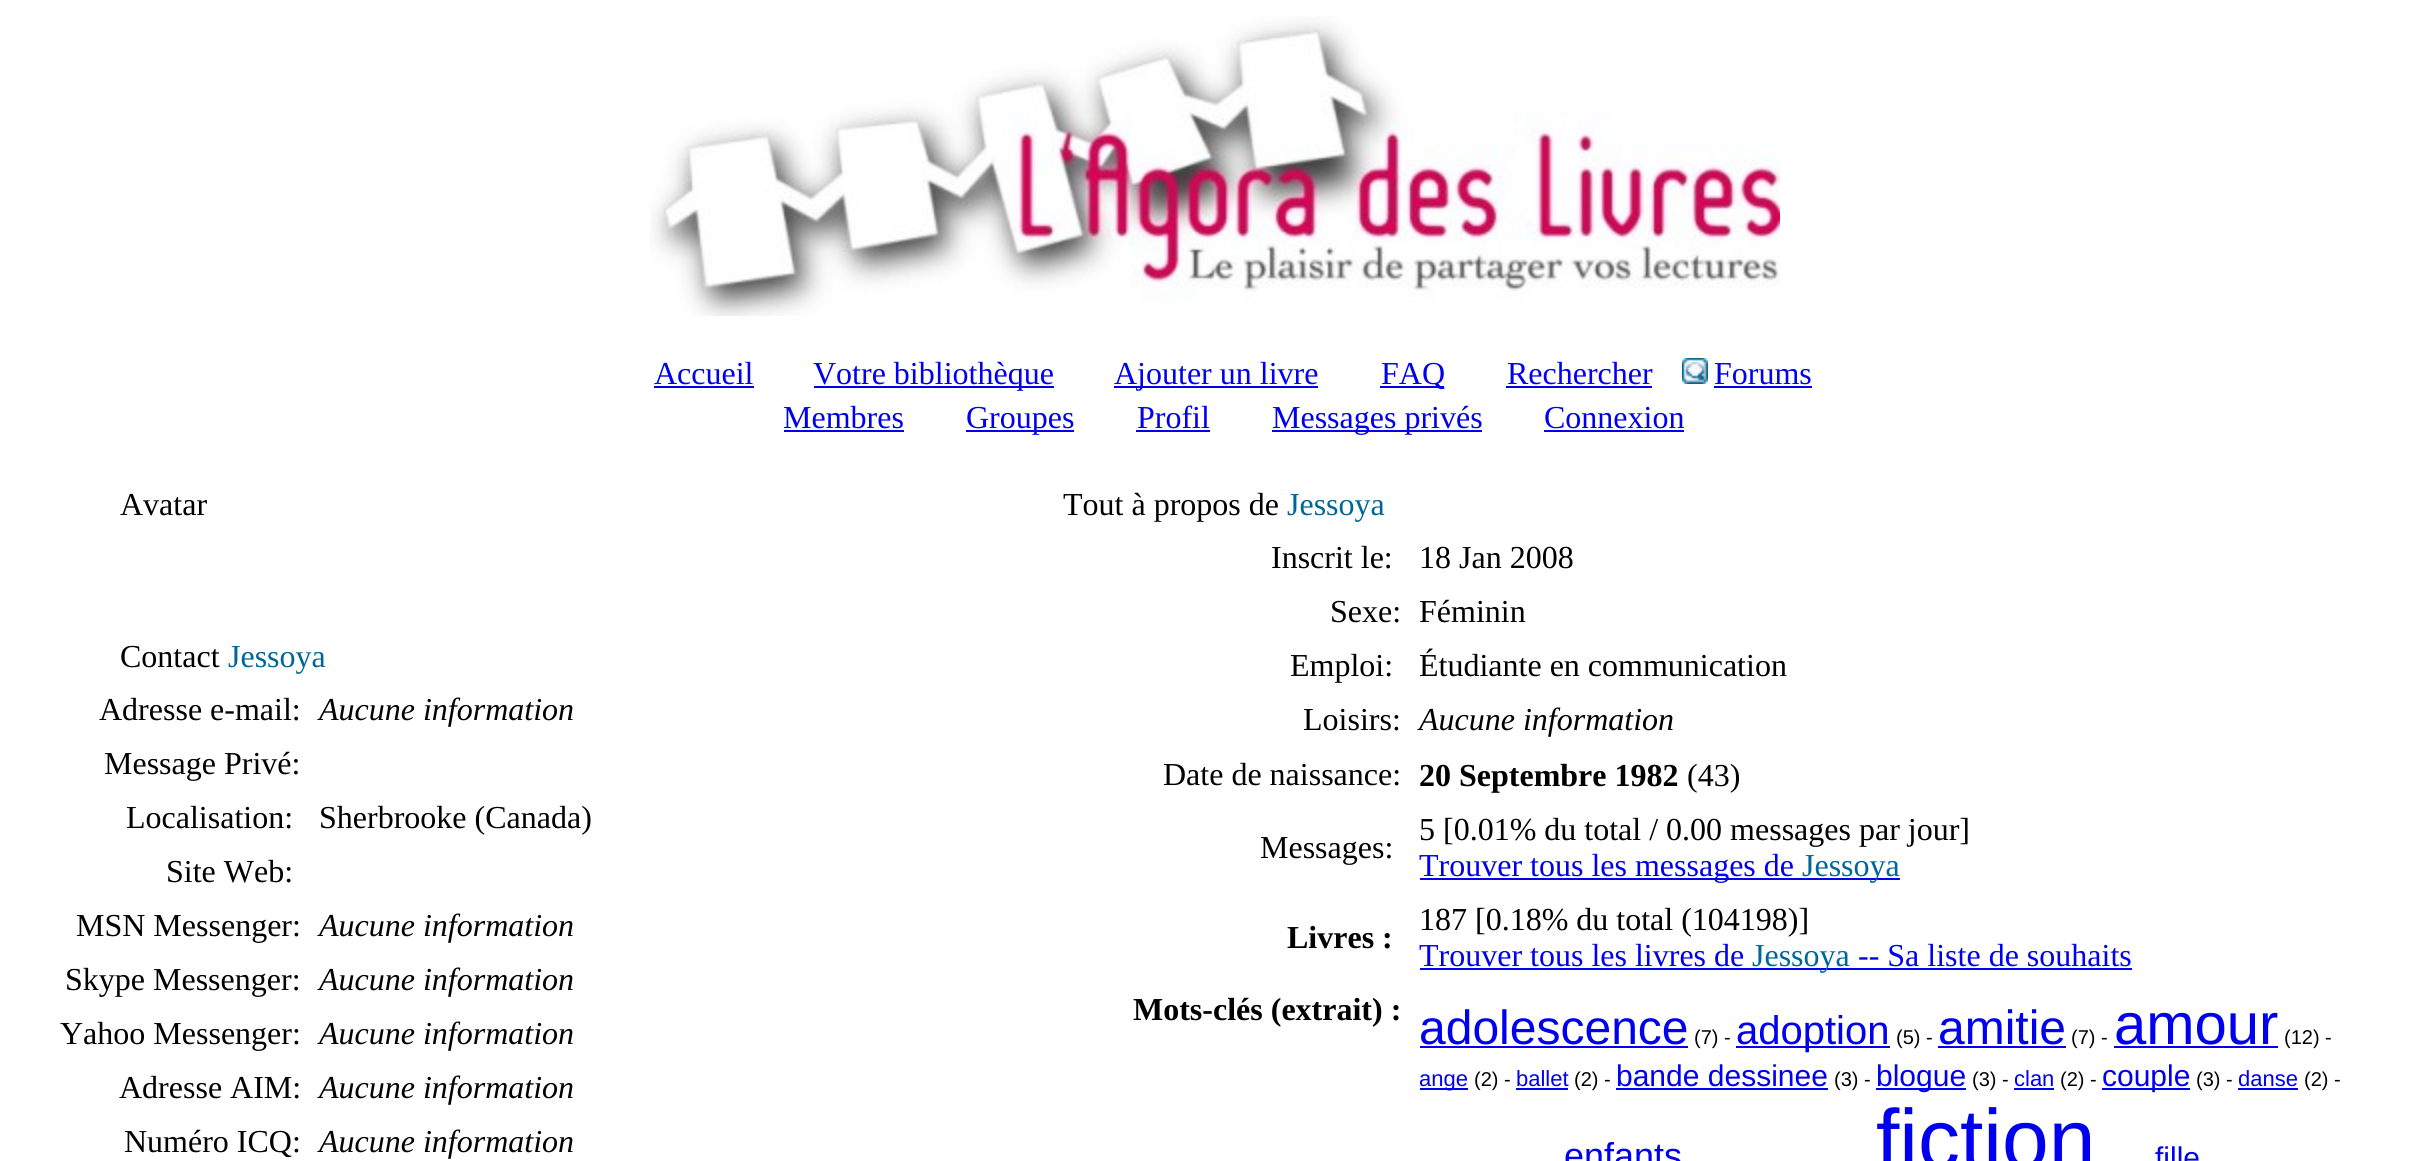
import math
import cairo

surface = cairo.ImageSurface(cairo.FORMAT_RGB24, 2429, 1161)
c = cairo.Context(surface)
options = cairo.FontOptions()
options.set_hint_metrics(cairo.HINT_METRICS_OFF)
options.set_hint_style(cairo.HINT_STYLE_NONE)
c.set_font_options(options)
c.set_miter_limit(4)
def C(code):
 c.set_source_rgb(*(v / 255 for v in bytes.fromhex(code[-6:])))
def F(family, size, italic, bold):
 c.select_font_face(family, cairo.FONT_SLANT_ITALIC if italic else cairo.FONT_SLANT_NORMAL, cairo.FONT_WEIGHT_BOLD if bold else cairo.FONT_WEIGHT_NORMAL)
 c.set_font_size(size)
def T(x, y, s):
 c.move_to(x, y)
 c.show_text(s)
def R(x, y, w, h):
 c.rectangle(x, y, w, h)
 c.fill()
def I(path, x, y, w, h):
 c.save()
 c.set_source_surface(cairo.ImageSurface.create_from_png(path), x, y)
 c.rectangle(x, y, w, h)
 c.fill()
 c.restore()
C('ffffff')
c.paint()
I('1.png',650,16,1130,300)
F('Liberation Serif',32,0,0)
C('0000ee')
T(654,384,'Accueil')
R(654,386,100,2)
R(814,386,240,2)
T(813,384,'Votre bibliothèque')
R(1114,386,204,2)
T(1114,384,'Ajouter un livre')
R(1380,386,64,2)
T(1381,384,'FAQ')
T(1507,384,'Rechercher')
R(1506,386,146,2)
I('2.png',1682,358,26,26)
T(1714,384,'Forums')
R(1714,386,98,2)
T(783,428,'Membres')
R(784,430,120,2)
R(966,430,108,2)
T(966,428,'Groupes')
T(1137,428,'Profil')
R(1136,430,74,2)
R(1272,430,210,2)
T(1272,428,'Messages privés')
T(1544,428,'Connexion')
R(1544,430,140,2)
C('000000')
T(120,515,'Avatar')
T(120,667,'Contact')
C('006699')
T(228,667,'Jessoya')
C('000000')
T(99,720,'Adresse e-mail:')
F('Liberation Serif',32,1,0)
T(319,720,'Aucune information')
F('Liberation Serif',32,0,0)
T(104,774,'Message Privé:')
T(126,828,'Localisation:')
T(319,828,'Sherbrooke (Canada)')
T(166,882,'Site Web:')
T(76,936,'MSN Messenger:')
F('Liberation Serif',32,1,0)
T(319,936,'Aucune information')
F('Liberation Serif',32,0,0)
T(65,990,'Skype Messenger:')
F('Liberation Serif',32,1,0)
T(319,990,'Aucune information')
F('Liberation Serif',32,0,0)
T(60,1044,'Yahoo Messenger:')
F('Liberation Serif',32,1,0)
T(319,1044,'Aucune information')
F('Liberation Serif',32,0,0)
T(119,1098,'Adresse AIM:')
F('Liberation Serif',32,1,0)
T(319,1098,'Aucune information')
F('Liberation Serif',32,0,0)
T(124,1152,'Numéro ICQ:')
F('Liberation Serif',32,1,0)
T(319,1152,'Aucune information')
F('Liberation Serif',32,0,0)
T(1063,515,'Tout à propos de')
C('006699')
T(1287,515,'Jessoya')
C('000000')
T(1271,568,'Inscrit le:')
T(1419,568,'18 Jan 2008')
T(1330,622,'Sexe:')
T(1419,622,'Féminin')
T(1290,676,'Emploi:')
T(1419,676,'Étudiante en communication')
T(1303,730,'Loisirs:')
F('Liberation Serif',32,1,0)
T(1419,730,'Aucune information')
F('Liberation Serif',32,0,0)
T(1163,785,'Date de naissance:')
F('Liberation Serif',32,0,1)
T(1419,786,'20 Septembre 1982')
F('Liberation Serif',32,0,0)
T(1687,786,'(43)')
T(1260,858,'Messages:')
T(1419,840,'5 [0.01% du total / 0.00 messages par jour]')
C('0000ee')
R(1420,878,480,2)
T(1419,876,'Trouver tous les messages de')
C('006699')
T(1802,876,'Jessoya')
F('Liberation Serif',32,0,1)
C('000000')
T(1287,948,'Livres :')
F('Liberation Serif',32,0,0)
T(1419,930,'187 [0.18% du total (104198)]')
C('0000ee')
T(1419,966,'Trouver tous les livres de')
R(1420,968,712,2)
C('006699')
T(1752,966,'Jessoya')
C('0000ee')
T(1858,966,'-- Sa liste de souhaits')
F('Liberation Serif',32,0,1)
C('000000')
T(1133,1020,'Mots-clés (extrait) :')
F('Liberation Sans',48,0,0)
C('0000ee')
T(1419,1044,'adolescence')
F('Liberation Sans',20,0,0)
C('000000')
T(1694,1044,'(7) -')
C('0000ee')
R(1420,1046,268,2)
R(1736,1046,154,2)
F('Liberation Sans',40,0,0)
T(1736,1044,'adoption')
F('Liberation Sans',20,0,0)
C('000000')
T(1896,1044,'(5) -')
C('0000ee')
R(1938,1046,128,2)
F('Liberation Sans',48,0,0)
T(1938,1044,'amitie')
F('Liberation Sans',20,0,0)
C('000000')
T(2071,1044,'(7) -')
C('0000ee')
R(2114,1046,164,2)
F('Liberation Sans',58,0,0)
T(2114,1044,'amour')
F('Liberation Sans',20,0,0)
C('000000')
T(2284,1044,'(12) -')
C('0000ee')
R(1420,1088,48,2)
F('Liberation Sans',22,0,0)
T(1419,1086,'ange')
F('Liberation Sans',20,0,0)
C('000000')
T(1474,1086,'(2) -')
F('Liberation Sans',22,0,0)
C('0000ee')
T(1516,1086,'ballet')
R(1516,1088,52,2)
F('Liberation Sans',20,0,0)
C('000000')
T(1574,1086,'(2) -')
C('0000ee')
R(1616,1088,212,2)
F('Liberation Sans',30,0,0)
T(1616,1086,'bande dessinee')
F('Liberation Sans',20,0,0)
C('000000')
T(1834,1086,'(3) -')
C('0000ee')
R(1876,1088,90,2)
F('Liberation Sans',30,0,0)
T(1876,1086,'blogue')
F('Liberation Sans',20,0,0)
C('000000')
T(1972,1086,'(3) -')
F('Liberation Sans',22,0,0)
C('0000ee')
T(2014,1086,'clan')
R(2014,1088,40,2)
F('Liberation Sans',20,0,0)
C('000000')
T(2060,1086,'(2) -')
C('0000ee')
R(2102,1088,88,2)
F('Liberation Sans',30,0,0)
T(2102,1086,'couple')
F('Liberation Sans',20,0,0)
C('000000')
T(2196,1086,'(3) -')
F('Liberation Sans',22,0,0)
C('0000ee')
T(2238,1086,'danse')
R(2238,1088,60,2)
F('Liberation Sans',20,0,0)
C('000000')
T(2304,1086,'(2) -')
F('Liberation Sans',36,0,0)
C('0000ee')
T(1564,1168,'enfants')
F('Liberation Sans',84,0,0)
T(1876,1168,'fiction')
F('Liberation Sans',30,0,0)
T(2155,1168,'fille')
surface.write_to_png('o.png')
